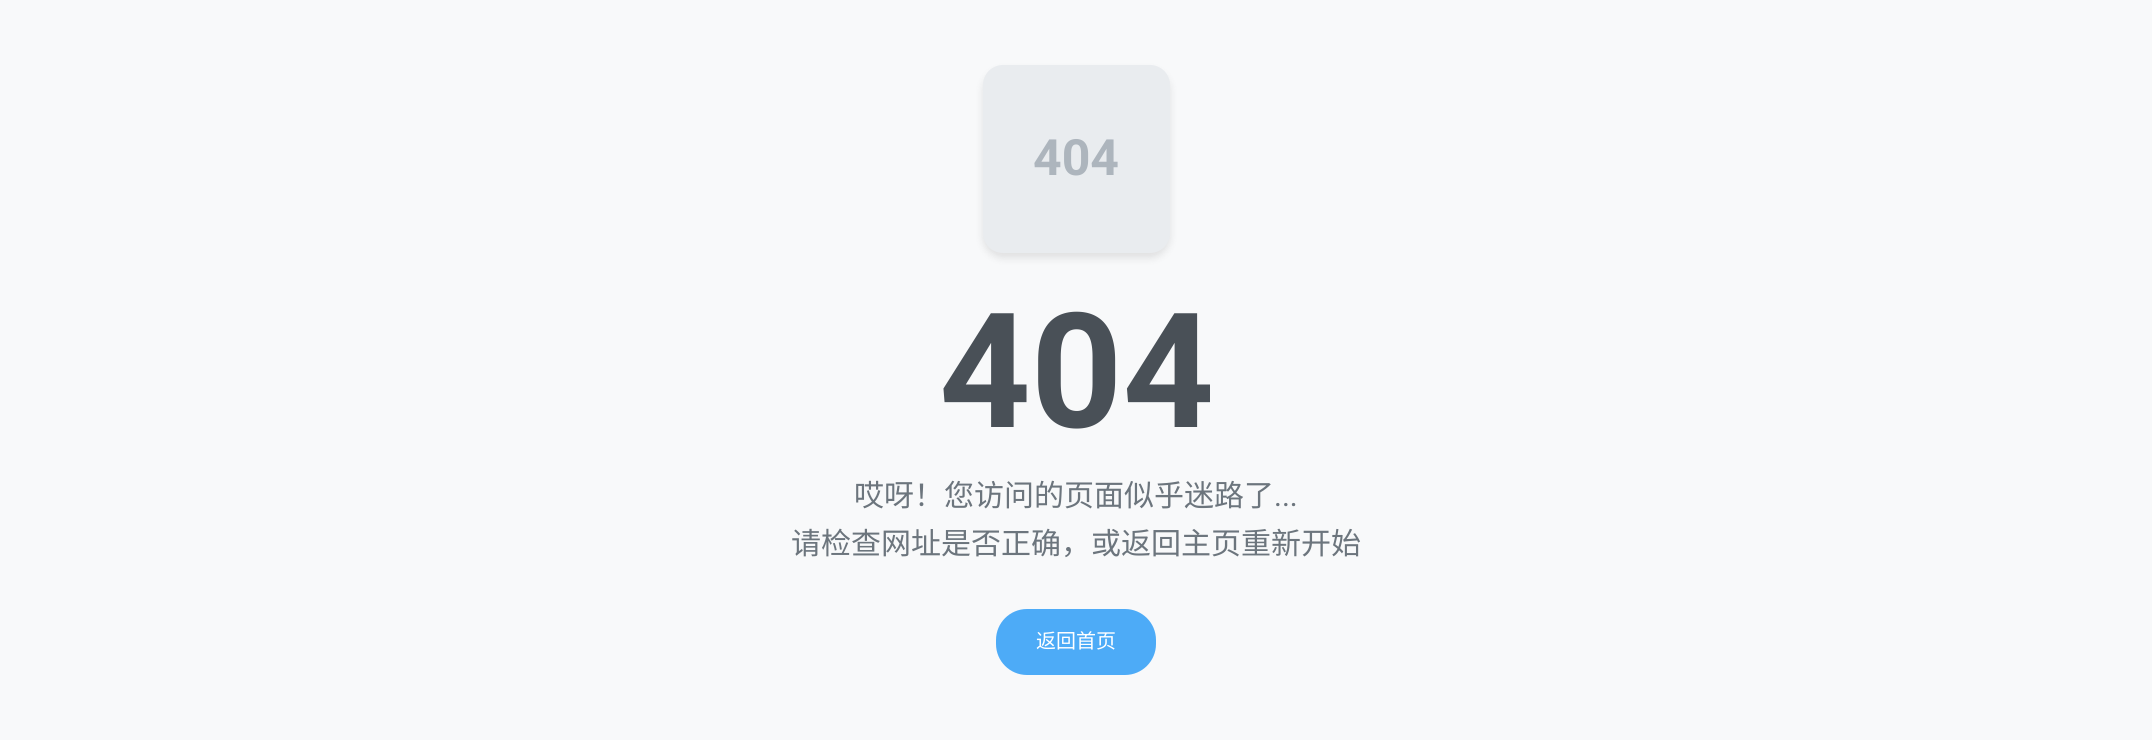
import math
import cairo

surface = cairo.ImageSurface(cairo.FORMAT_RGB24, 2152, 740)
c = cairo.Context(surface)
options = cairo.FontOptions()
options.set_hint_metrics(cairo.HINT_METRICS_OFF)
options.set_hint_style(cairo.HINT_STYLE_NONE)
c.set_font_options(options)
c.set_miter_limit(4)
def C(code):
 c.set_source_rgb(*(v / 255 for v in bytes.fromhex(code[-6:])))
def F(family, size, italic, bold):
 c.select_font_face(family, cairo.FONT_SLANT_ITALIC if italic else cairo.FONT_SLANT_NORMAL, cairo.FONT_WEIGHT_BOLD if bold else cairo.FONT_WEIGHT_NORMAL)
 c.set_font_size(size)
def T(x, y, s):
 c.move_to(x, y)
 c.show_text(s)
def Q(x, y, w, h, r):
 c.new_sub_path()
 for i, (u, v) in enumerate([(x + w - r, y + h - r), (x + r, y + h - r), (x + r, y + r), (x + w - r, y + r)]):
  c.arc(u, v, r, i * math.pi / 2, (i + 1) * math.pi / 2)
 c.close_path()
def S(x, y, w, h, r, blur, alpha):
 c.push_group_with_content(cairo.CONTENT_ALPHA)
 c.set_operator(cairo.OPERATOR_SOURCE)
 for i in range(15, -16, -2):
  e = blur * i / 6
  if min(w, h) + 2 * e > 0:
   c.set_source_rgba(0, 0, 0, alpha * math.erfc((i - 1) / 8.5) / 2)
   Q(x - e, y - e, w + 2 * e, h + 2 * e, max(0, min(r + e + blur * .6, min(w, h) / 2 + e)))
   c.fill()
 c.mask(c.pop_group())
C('f8f9fa')
c.paint()
C('000000')
S(983,70,187,188,20,4,.1)
C('e9ecef')
Q(983,65,187,188,20)
c.fill()
F('Roboto',50,0,1)
C('adb5bd')
T(1033,175,'404')
F('Roboto',160,0,1)
C('495057')
T(939,427,'404')
F('Noto Sans CJK SC',30,0,0)
C('6c757d')
T(854,506,'哎呀！您访问的页面似乎迷路了')
F('Roboto',30,0,0)
T(1274,506,'...')
F('Noto Sans CJK SC',30,0,0)
T(791,554,'请检查网址是否正确，或返回主页重新开始')
C('4dabf7')
Q(996,609,160,66,31)
c.fill()
F('Noto Sans CJK SC',20,0,0)
C('ffffff')
T(1036,648,'返回首页')
surface.write_to_png('o.png')
